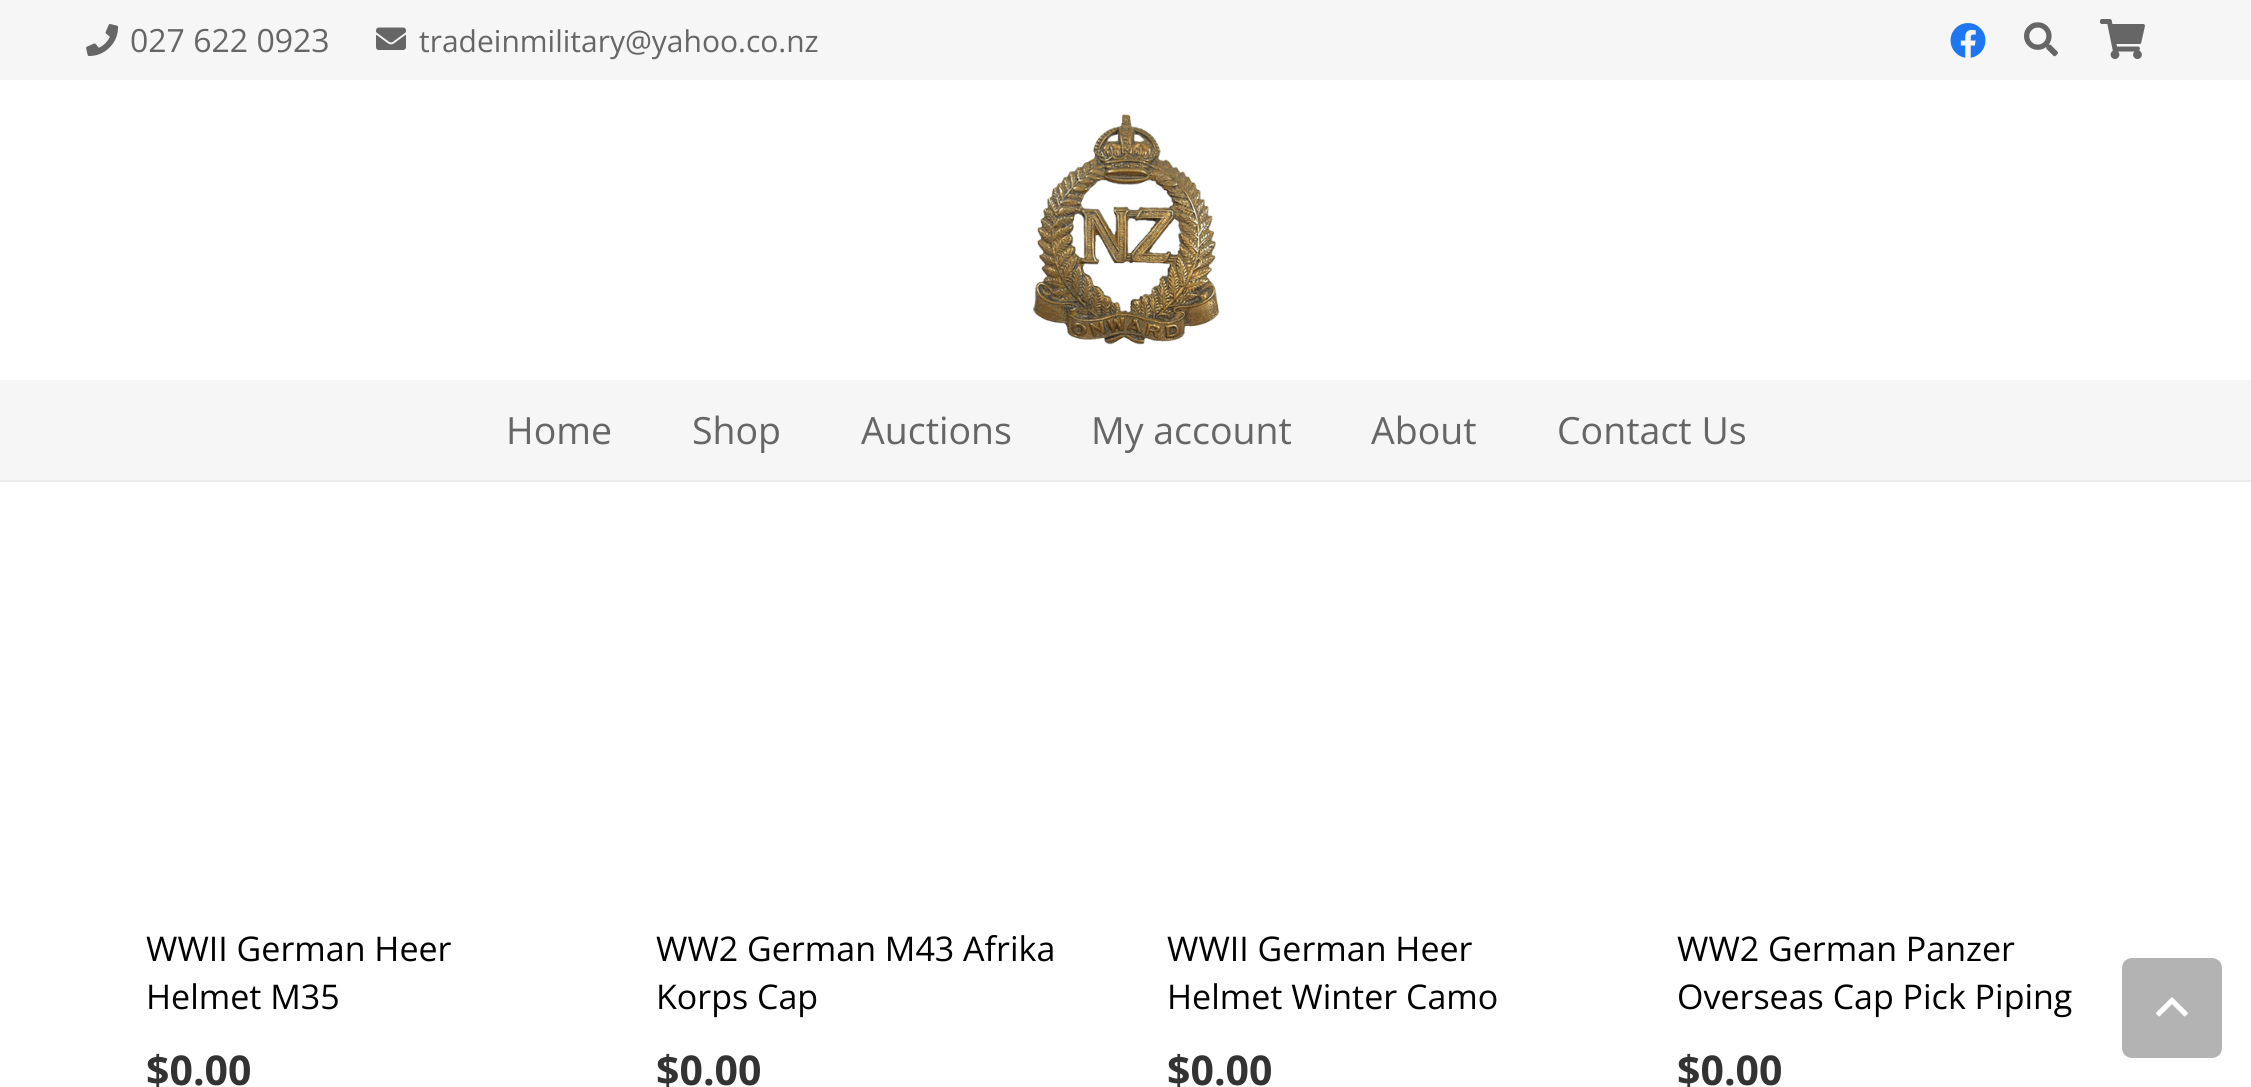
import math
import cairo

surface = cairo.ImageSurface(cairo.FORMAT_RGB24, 2251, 1087)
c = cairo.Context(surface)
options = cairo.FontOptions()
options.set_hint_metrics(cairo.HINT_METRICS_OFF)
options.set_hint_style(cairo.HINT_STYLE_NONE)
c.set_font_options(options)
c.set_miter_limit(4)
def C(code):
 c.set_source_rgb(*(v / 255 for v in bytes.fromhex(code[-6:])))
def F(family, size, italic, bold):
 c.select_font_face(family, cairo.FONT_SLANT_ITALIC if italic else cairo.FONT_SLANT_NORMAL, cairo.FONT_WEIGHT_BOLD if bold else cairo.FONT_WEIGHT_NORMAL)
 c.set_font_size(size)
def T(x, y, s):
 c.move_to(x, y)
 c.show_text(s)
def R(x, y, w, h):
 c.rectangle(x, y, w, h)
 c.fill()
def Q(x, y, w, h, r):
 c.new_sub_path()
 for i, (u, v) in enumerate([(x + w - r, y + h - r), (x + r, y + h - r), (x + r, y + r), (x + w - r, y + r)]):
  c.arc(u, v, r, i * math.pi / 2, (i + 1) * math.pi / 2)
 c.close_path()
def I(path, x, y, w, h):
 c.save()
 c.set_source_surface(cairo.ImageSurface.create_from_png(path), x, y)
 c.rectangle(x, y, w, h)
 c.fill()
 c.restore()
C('ffffff')
c.paint()
C('f6f6f6')
R(0,0,2251,80)
I('1.png',86,24,33,32)
F('Open Sans',32,0,0)
C('666666')
T(130,52,'027 622 0923')
I('2.png',376,27,30,23)
F('Open Sans',30,0,0)
T(419,52,'tradeinmilitary@yahoo.co.nz')
I('3.png',1950,23,36,35)
I('4.png',2024,22,34,35)
I('5.png',2100,19,45,40)
I('6.png',1033,114,187,231)
C('ebebeb')
R(0,480,2251,2)
C('f6f6f6')
R(0,380,2251,100)
F('Open Sans',37.5,0,0)
C('666666')
T(506,444,'Home')
T(692,444,'Shop')
T(861,444,'Auctions')
T(1091,444,'My account')
T(1371,444,'About')
T(1557,444,'Contact Us')
F('Open Sans',34,0,0)
C('000000')
T(146,961,'WWII German Heer')
T(146,1009,'Helmet M35')
F('Open Sans',41,0,1)
C('333333')
T(146,1085,'$0.00')
F('Open Sans',34,0,0)
C('000000')
T(656,961,'WW2 German M43 Afrika')
T(656,1009,'Korps Cap')
F('Open Sans',41,0,1)
C('333333')
T(656,1085,'$0.00')
F('Open Sans',34,0,0)
C('000000')
T(1167,961,'WWII German Heer')
T(1167,1009,'Helmet Winter Camo')
F('Open Sans',41,0,1)
C('333333')
T(1167,1085,'$0.00')
F('Open Sans',34,0,0)
C('000000')
T(1677,961,'WW2 German Panzer')
T(1677,1009,'Overseas Cap Pick Piping')
F('Open Sans',41,0,1)
C('333333')
T(1677,1085,'$0.00')
C('b3b3b3')
Q(2122,958,100,100,10)
c.fill()
I('7.png',2156,997,32,20)
surface.write_to_png('o.png')
